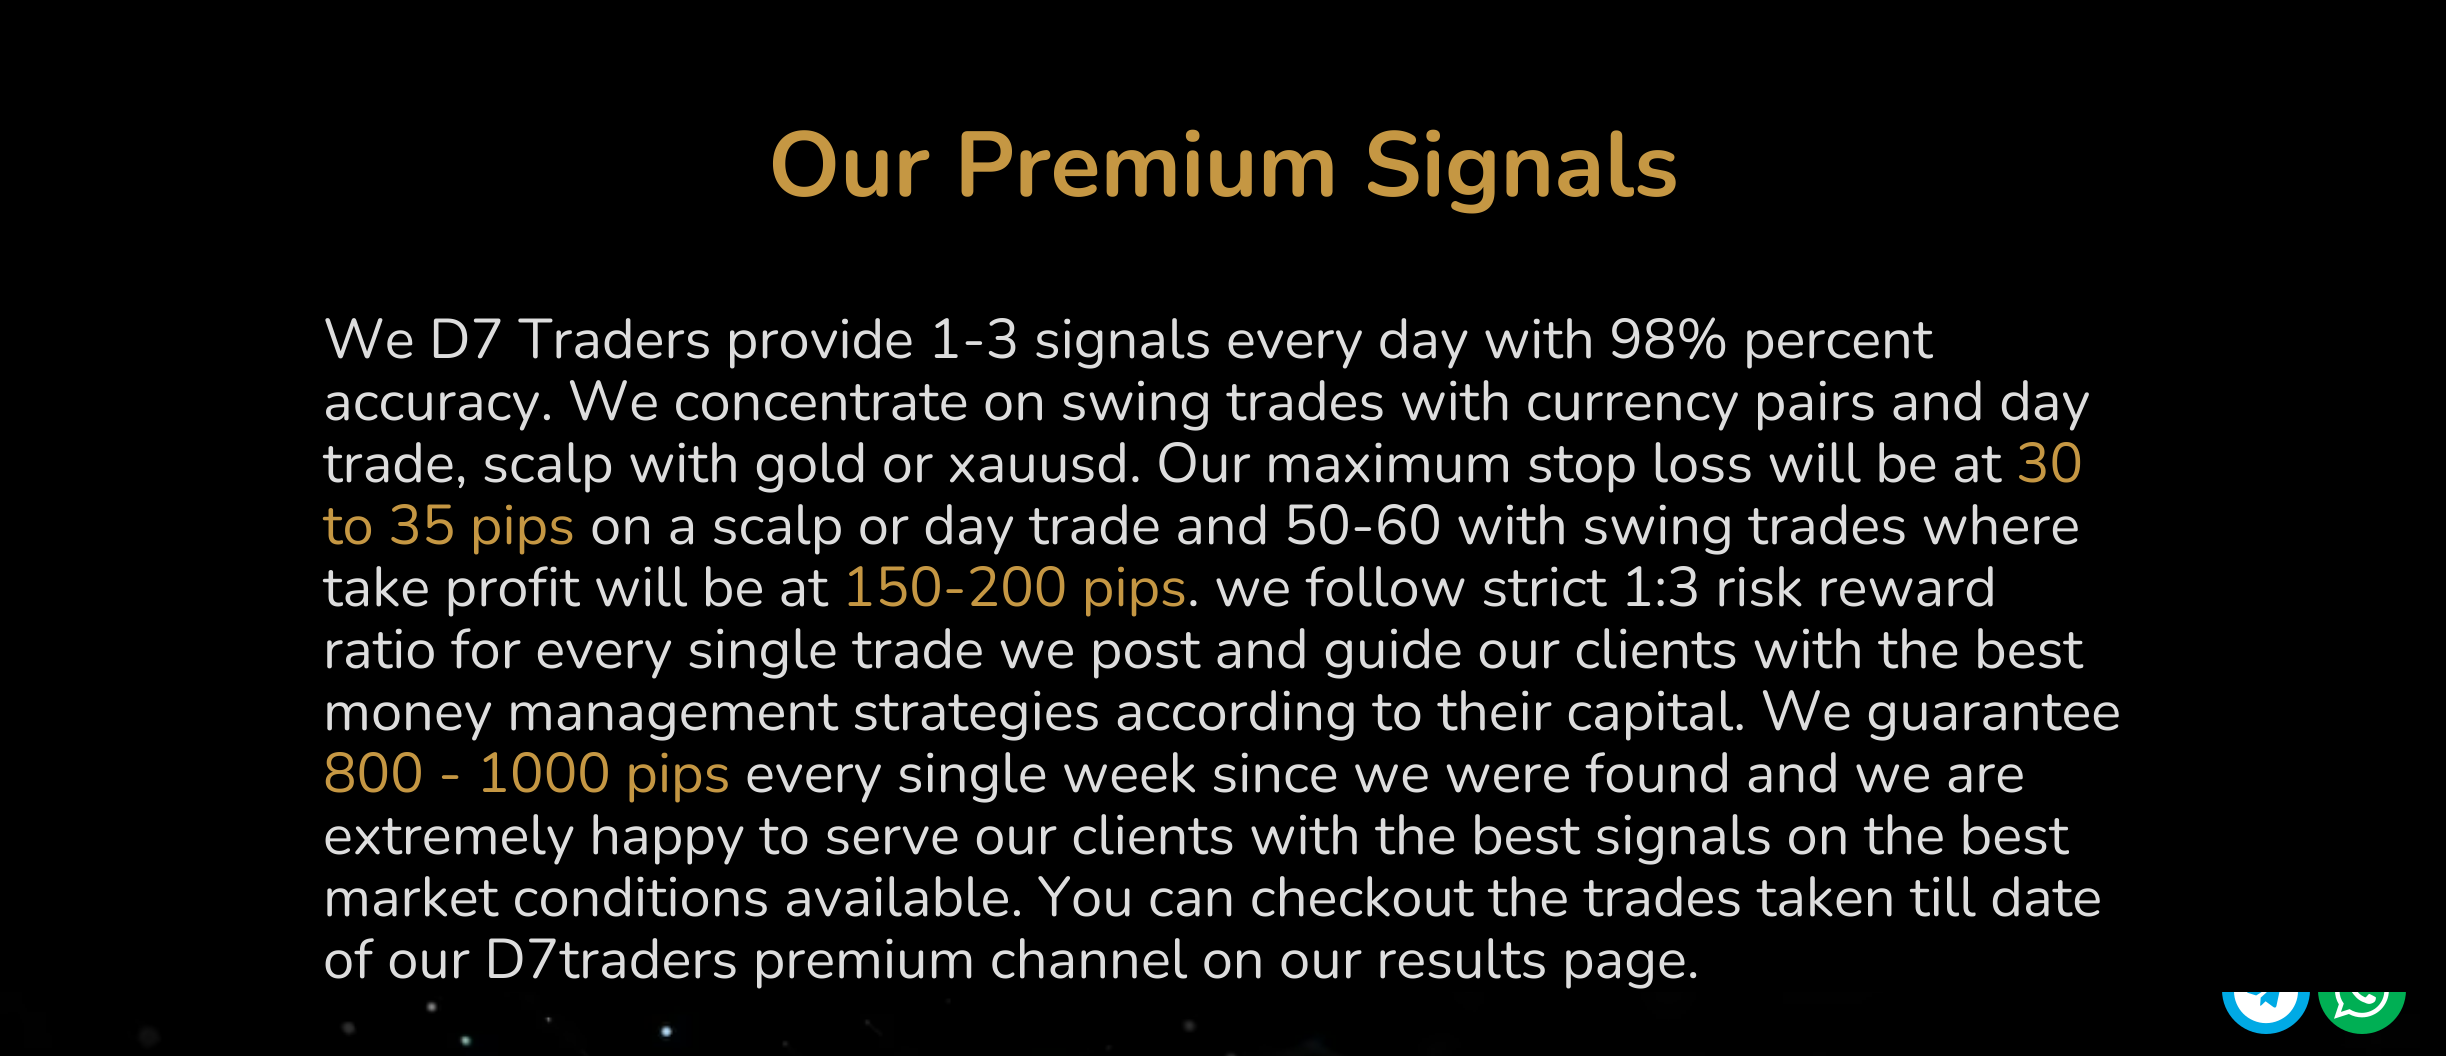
import math
import cairo

surface = cairo.ImageSurface(cairo.FORMAT_RGB24, 2446, 1056)
c = cairo.Context(surface)
options = cairo.FontOptions()
options.set_hint_metrics(cairo.HINT_METRICS_OFF)
options.set_hint_style(cairo.HINT_STYLE_NONE)
c.set_font_options(options)
c.set_miter_limit(4)
def C(code):
 c.set_source_rgb(*(v / 255 for v in bytes.fromhex(code[-6:])))
def F(family, size, italic, bold):
 c.select_font_face(family, cairo.FONT_SLANT_ITALIC if italic else cairo.FONT_SLANT_NORMAL, cairo.FONT_WEIGHT_BOLD if bold else cairo.FONT_WEIGHT_NORMAL)
 c.set_font_size(size)
def T(x, y, s):
 c.move_to(x, y)
 c.show_text(s)
def R(x, y, w, h):
 c.rectangle(x, y, w, h)
 c.fill()
def I(path, x, y, w, h):
 c.save()
 c.set_source_surface(cairo.ImageSurface.create_from_png(path), x, y)
 c.rectangle(x, y, w, h)
 c.fill()
 c.restore()
C('ffffff')
c.paint()
I('1.png',0,992,2446,64)
C('00aae5')
c.arc(2266,990,44,0,2 * math.pi)
c.fill()
C('00af54')
c.arc(2362,990,44,0,2 * math.pi)
c.fill()
C('000000')
R(0,0,2446,992)
F('Nunito',92,0,1)
C('c59743')
T(768,196,'Our Premium Signals')
F('Nunito',56,0,0)
C('dddddd')
T(323,358,'We D7 Traders provide 1-3 signals every day with 98% percent')
T(323,420,'accuracy. We concentrate on swing trades with currency pairs and day')
T(323,482,'trade, scalp with gold or xauusd. Our maximum stop loss will be at')
C('c59743')
T(2016,482,'30')
T(323,544,'to 35 pips')
C('dddddd')
T(590,544,'on a scalp or day trade and 50-60 with swing trades where')
T(323,606,'take profit will be at')
C('c59743')
T(842,606,'150-200 pips')
C('dddddd')
T(1187,606,'. we follow strict 1:3 risk reward')
T(323,668,'ratio for every single trade we post and guide our clients with the best')
T(323,730,'money management strategies according to their capital. We guarantee')
C('c59743')
T(323,792,'800 - 1000 pips')
C('dddddd')
T(745,792,'every single week since we were found and we are')
T(323,854,'extremely happy to serve our clients with the best signals on the best')
T(323,916,'market conditions available. You can checkout the trades taken till date')
T(323,978,'of our D7traders premium channel on our results page.')
I('2.png',2234,992,64,32)
I('3.png',2334,992,55,27)
surface.write_to_png('o.png')
